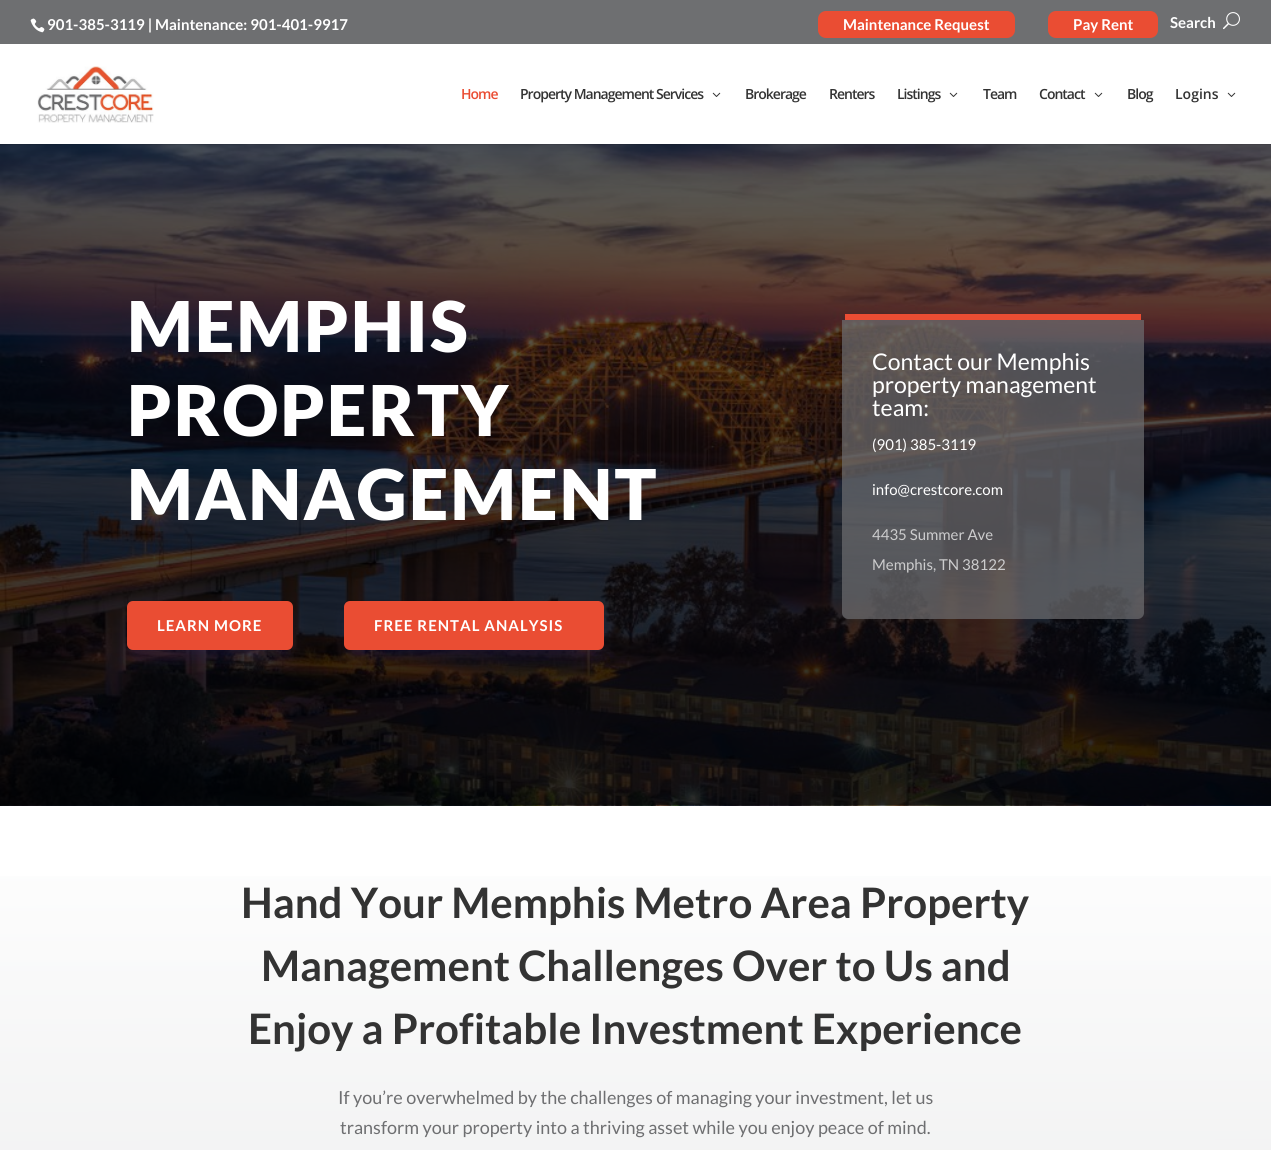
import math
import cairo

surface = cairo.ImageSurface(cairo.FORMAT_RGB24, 1271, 1150)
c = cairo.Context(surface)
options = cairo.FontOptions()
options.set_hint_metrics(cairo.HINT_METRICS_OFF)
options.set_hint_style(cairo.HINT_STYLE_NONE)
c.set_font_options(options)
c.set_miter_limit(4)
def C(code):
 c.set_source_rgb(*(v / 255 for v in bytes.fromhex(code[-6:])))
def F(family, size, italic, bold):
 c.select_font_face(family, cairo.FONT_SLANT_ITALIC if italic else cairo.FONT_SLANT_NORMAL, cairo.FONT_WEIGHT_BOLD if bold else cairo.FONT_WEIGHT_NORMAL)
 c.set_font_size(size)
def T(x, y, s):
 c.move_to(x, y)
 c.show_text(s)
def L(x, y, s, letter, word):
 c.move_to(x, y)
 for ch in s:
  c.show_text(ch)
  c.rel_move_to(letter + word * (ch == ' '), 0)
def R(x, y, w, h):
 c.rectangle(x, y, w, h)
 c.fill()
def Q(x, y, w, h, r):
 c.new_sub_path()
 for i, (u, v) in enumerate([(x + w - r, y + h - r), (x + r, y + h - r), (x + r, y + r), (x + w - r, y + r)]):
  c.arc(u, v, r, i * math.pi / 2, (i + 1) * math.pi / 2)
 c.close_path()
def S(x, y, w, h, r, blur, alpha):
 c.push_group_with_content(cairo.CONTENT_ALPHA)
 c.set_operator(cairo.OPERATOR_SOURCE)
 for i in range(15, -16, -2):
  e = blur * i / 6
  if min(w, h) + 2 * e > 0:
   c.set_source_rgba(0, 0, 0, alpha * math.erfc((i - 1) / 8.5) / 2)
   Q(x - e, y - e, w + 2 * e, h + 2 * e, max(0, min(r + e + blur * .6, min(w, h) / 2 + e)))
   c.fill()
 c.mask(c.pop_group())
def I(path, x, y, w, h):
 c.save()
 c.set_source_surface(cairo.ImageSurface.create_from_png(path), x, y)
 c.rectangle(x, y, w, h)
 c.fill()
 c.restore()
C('ffffff')
c.paint()
C('6e6f71')
R(0,0,1271,44)
I('1.png',30,18,15,15)
F('Lato',15,0,1)
C('ffffff')
T(47,30,'901-385-3119 | Maintenance: 901-401-9917')
C('ea4d33')
Q(818,11,197,27,8)
c.fill()
C('ffffff')
T(843,30,'Maintenance Request')
C('ea4d33')
Q(1048,11,110,27,8)
c.fill()
C('ffffff')
T(1073,30,'Pay Rent')
T(1170,28,'Search')
I('2.png',1223,12,17,18)
I('5.png',0,144,1271,662)
c.set_source_rgba(0,0,0,0.1)
R(0,144,1271,1)
I('3.png',37,66,117,57)
F('Open Sans SemiBold',14,0,0)
C('ea4d33')
L(461,99,'Home',-1,0)
C('333333')
L(520,99,'Property Management Services',-1,0)
I('4.png',712,92,9,5)
L(745,99,'Brokerage',-1,0)
L(829,99,'Renters',-1,0)
L(897,99,'Listings',-1,0)
I('4.png',949,92,9,5)
L(983,99,'Team',-1,0)
L(1039,99,'Contact',-1,0)
I('4.png',1094,92,9,5)
L(1127,99,'Blog',-1,0)
T(1175,99,'Logins')
I('4.png',1227,92,9,5)
F('Lato Black',70,0,0)
C('ffffff')
L(127,352,'MEMPHIS',2,0)
L(127,436,'PROPERTY',2,0)
L(127,520,'MANAGEMENT',2,0)
C('3c39e6')
S(133,619,154,37,0,9,.15)
C('ea4d33')
Q(127,601,166,49,6)
c.fill()
F('Lato',15,0,1)
C('ffffff')
L(157,631,'LEARN MORE',1,0)
C('3c39e6')
S(350,619,248,37,0,9,.15)
C('ea4d33')
Q(344,601,260,49,6)
c.fill()
C('ffffff')
L(374,631,'FREE RENTAL ANALYSIS',1,0)
c.set_source_rgba(0.431,0.435,0.443,0.7)
c.new_path()
c.move_to(848,320)
c.line_to(1144,320)
c.line_to(1144,613)
c.curve_to(1144,616,1141,619,1138,619)
c.line_to(848,619)
c.curve_to(845,619,842,616,842,613)
c.line_to(842,320)
c.close_path()
c.fill()
C('ea4d33')
R(845,314,296,6)
F('Lato',23,0,0)
C('ffffff')
T(872,370,'Contact our Memphis')
T(872,393,'property management')
T(872,416,'team:')
F('Lato',15,0,0)
T(872,450,'(901) 385-3119')
T(872,495,'info@crestcore.com')
C('cccccd')
T(872,540,'4435 Summer Ave')
T(872,570,'Memphis, TN 38122')
gradient = cairo.LinearGradient(635,806,636,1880)
gradient.add_color_stop_rgba(0,1,1,1,1)
gradient.add_color_stop_rgba(1,0.851,0.855,0.859,1)
c.set_source(gradient)
R(0,876,1271,274)
F('Lato',42,0,1)
C('333333')
T(241,918,'Hand Your Memphis Metro Area Property')
T(261,981,'Management Challenges Over to Us and')
T(248,1044,'Enjoy a Profitable Investment Experience')
F('Lato',18,0,0)
C('6e6f71')
T(338,1104,'If you’re overwhelmed by the challenges of managing your investment, let us')
T(340,1134,'transform your property into a thriving asset while you enjoy peace of mind.')
surface.write_to_png('o.png')
